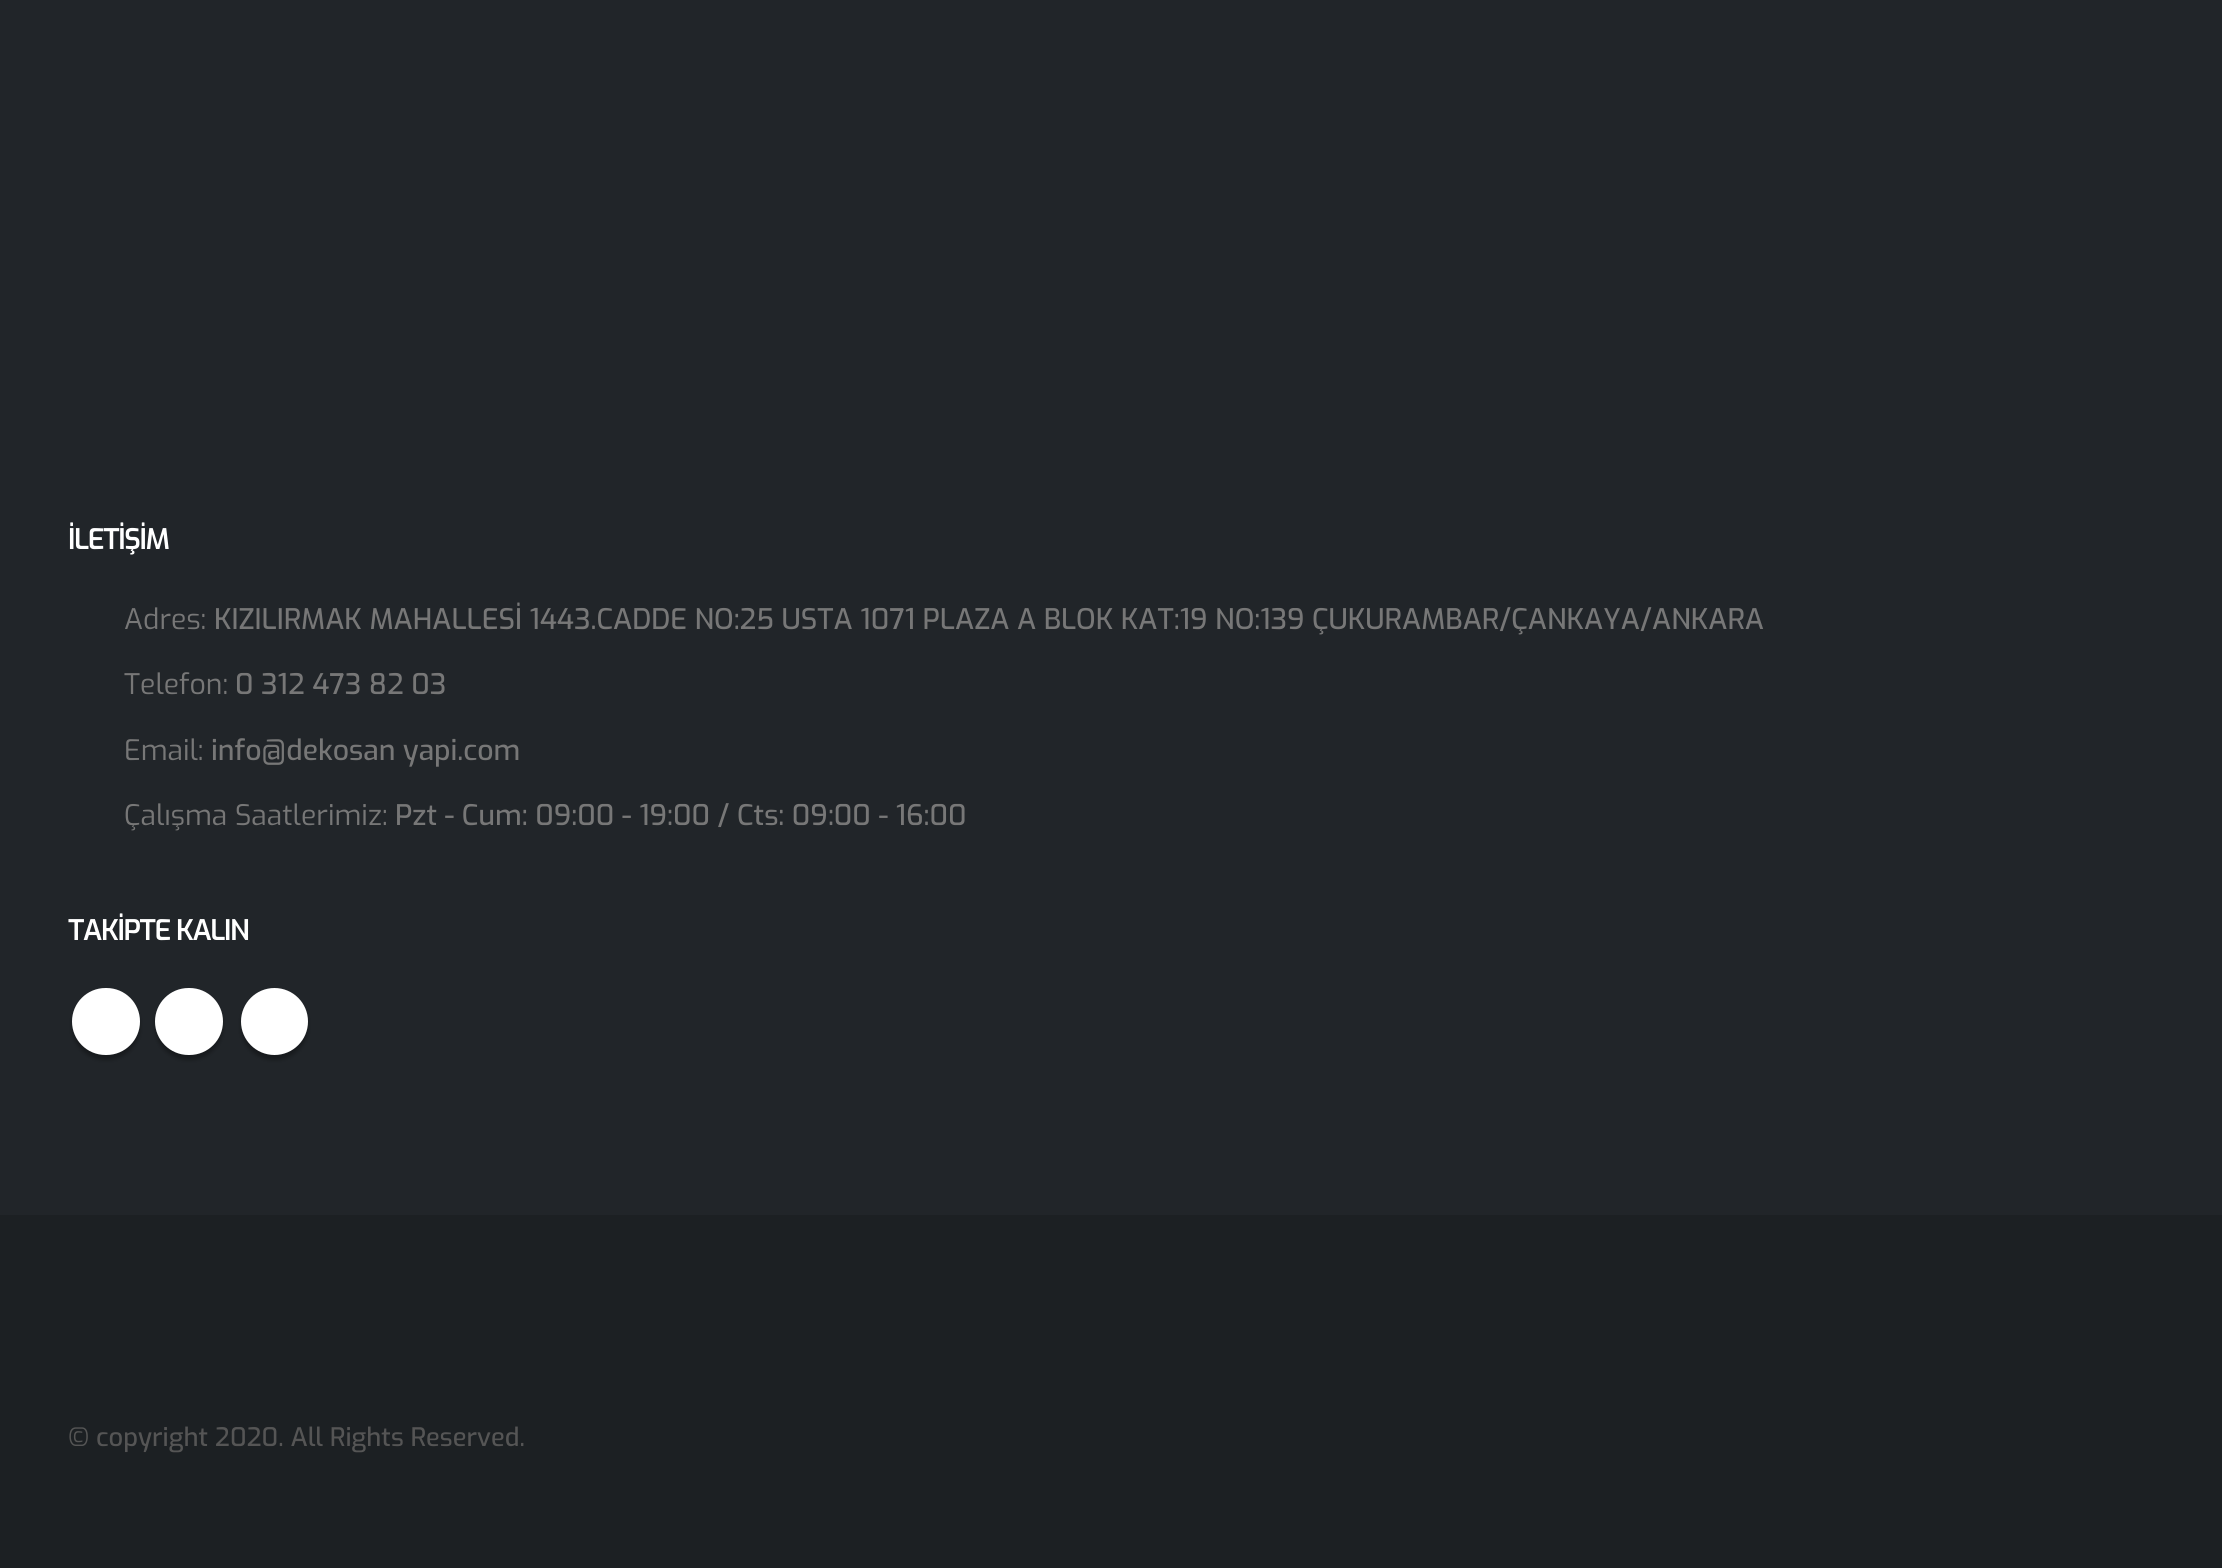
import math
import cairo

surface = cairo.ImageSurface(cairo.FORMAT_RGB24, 2222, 1568)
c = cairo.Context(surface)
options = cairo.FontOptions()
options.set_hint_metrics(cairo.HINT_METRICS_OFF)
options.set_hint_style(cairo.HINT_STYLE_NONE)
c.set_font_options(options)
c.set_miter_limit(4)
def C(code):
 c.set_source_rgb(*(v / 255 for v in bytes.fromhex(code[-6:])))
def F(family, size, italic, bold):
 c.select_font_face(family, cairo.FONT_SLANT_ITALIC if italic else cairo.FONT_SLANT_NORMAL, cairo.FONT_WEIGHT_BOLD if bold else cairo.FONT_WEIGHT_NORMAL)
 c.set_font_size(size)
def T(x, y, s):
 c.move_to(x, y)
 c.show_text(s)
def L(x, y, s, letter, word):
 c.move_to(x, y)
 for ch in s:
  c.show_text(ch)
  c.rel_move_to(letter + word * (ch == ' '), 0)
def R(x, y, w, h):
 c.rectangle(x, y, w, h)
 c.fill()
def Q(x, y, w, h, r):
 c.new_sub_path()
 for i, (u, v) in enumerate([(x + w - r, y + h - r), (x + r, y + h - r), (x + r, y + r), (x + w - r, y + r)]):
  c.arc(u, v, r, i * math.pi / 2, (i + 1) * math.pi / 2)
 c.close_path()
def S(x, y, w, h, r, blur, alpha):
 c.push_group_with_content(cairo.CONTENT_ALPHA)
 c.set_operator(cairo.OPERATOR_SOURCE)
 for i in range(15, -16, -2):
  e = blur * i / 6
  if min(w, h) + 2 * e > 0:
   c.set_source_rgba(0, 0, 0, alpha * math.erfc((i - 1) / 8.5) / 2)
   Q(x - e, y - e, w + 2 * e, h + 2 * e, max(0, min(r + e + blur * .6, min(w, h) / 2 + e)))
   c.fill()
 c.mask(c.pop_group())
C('212529')
c.paint()
F('Exo SemiBold',28.35,0,0)
C('ffffff')
L(68,549,'İLETİŞİM',-1.4,0)
F('Exo',28.35,0,0)
C('777777')
T(124,629,'Adres:')
F('Exo Medium',28.35,0,0)
T(214,629,'KIZILIRMAK MAHALLESİ 1443.CADDE NO:25 USTA 1071 PLAZA A BLOK KAT:19 NO:139 ÇUKURAMBAR/ÇANKAYA/ANKARA')
F('Exo',28.35,0,0)
T(124,694,'Telefon:')
F('Exo Medium',28.35,0,0)
T(235,694,'0 312 473 82 03')
F('Exo',28.35,0,0)
T(124,760,'Email:')
F('Exo Medium',28.35,0,0)
T(211,760,'info@dekosan yapi.com')
F('Exo',28.35,0,0)
T(124,825,'Çalışma Saatlerimiz:')
F('Exo Medium',28.35,0,0)
T(395,825,'Pzt - Cum: 09:00 - 19:00 / Cts: 09:00 - 16:00')
F('Exo SemiBold',28.35,0,0)
C('ffffff')
L(68,940,'TAKİPTE KALIN',-1.4,0)
C('000000')
S(72,992,68,68,34,2,.3)
C('ffffff')
Q(72,988,68,67,33.5)
c.fill()
C('000000')
S(155,992,68,68,34,2,.3)
C('ffffff')
Q(155,988,68,67,33.5)
c.fill()
C('000000')
S(241,992,67,68,33.5,2,.3)
C('ffffff')
c.arc(274.5,1021.5,33.5,0,2 * math.pi)
c.fill()
C('1c2023')
R(0,1215,2222,353)
F('Exo Medium',25.5,0,0)
C('555555')
T(68,1446,'© copyright 2020. All Rights Reserved.')
surface.write_to_png('o.png')
